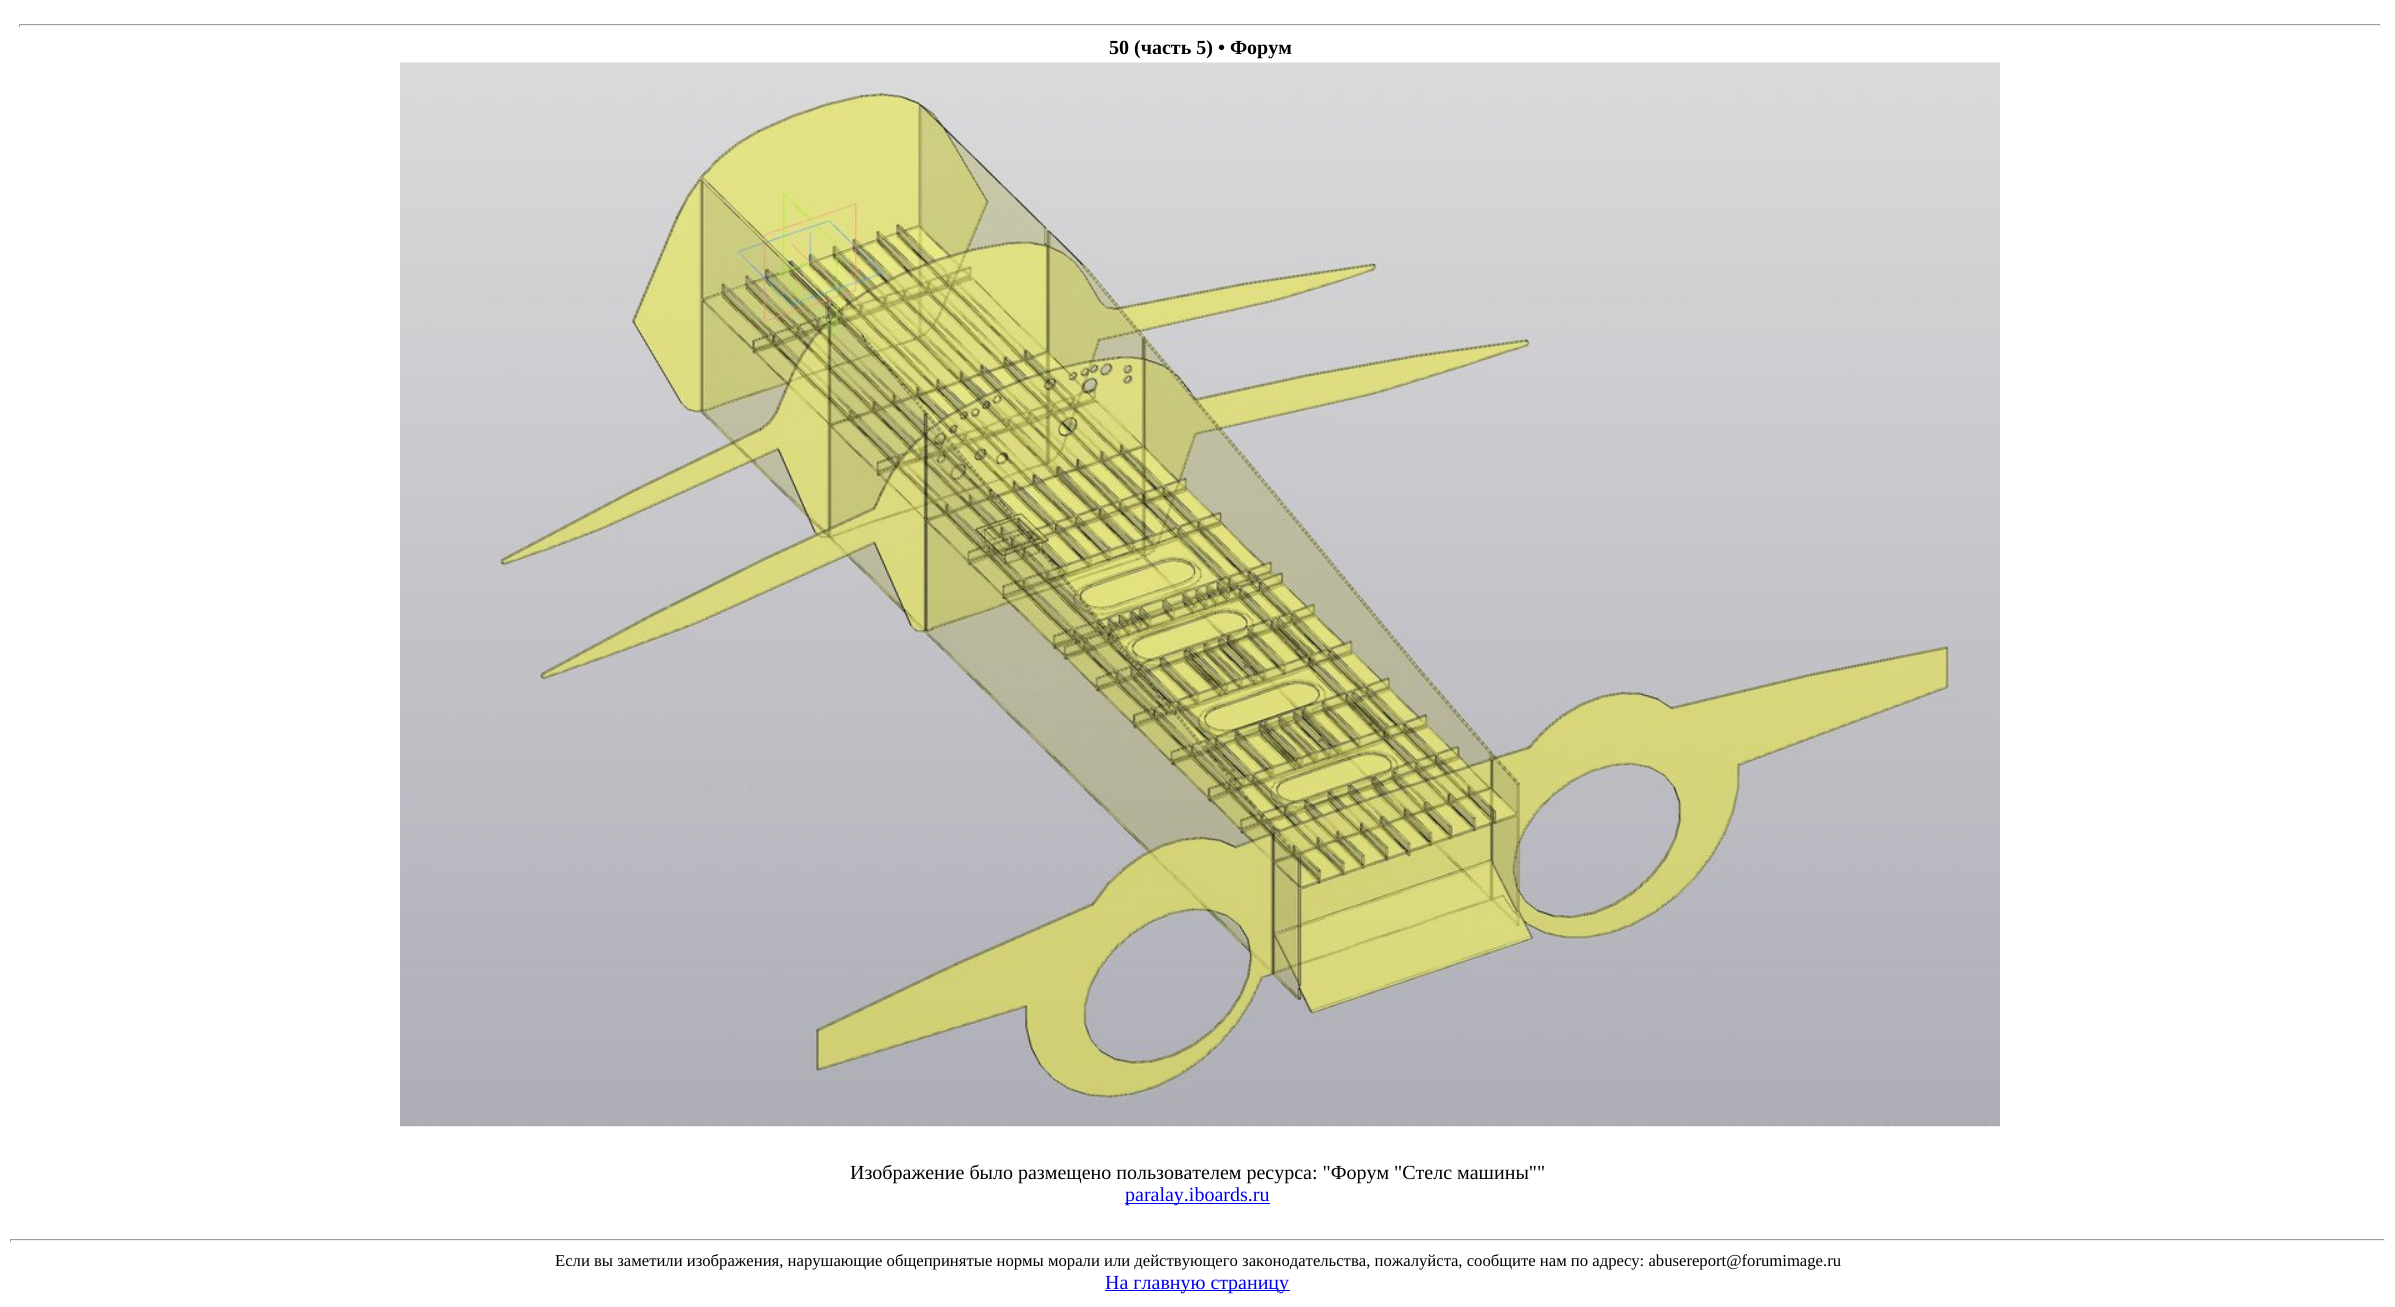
import math
import cairo

surface = cairo.ImageSurface(cairo.FORMAT_RGB24, 2395, 1307)
c = cairo.Context(surface)
options = cairo.FontOptions()
options.set_hint_metrics(cairo.HINT_METRICS_OFF)
options.set_hint_style(cairo.HINT_STYLE_NONE)
c.set_font_options(options)
c.set_miter_limit(4)
def C(code):
 c.set_source_rgb(*(v / 255 for v in bytes.fromhex(code[-6:])))
def F(family, size, italic, bold):
 c.select_font_face(family, cairo.FONT_SLANT_ITALIC if italic else cairo.FONT_SLANT_NORMAL, cairo.FONT_WEIGHT_BOLD if bold else cairo.FONT_WEIGHT_NORMAL)
 c.set_font_size(size)
def T(x, y, s):
 c.move_to(x, y)
 c.show_text(s)
def R(x, y, w, h):
 c.rectangle(x, y, w, h)
 c.fill()
def I(path, x, y, w, h):
 c.save()
 c.set_source_surface(cairo.ImageSurface.create_from_png(path), x, y)
 c.rectangle(x, y, w, h)
 c.fill()
 c.restore()
C('ffffff')
c.paint()
C('9f9f9f')
R(19,24,2362,1)
C('eeeeee')
R(2380,24,1,3)
R(19,25,2362,1)
C('9f9f9f')
R(19,24,1,3)
F('Liberation Serif',20,0,1)
C('000000')
T(1109,54,'50 (часть 5) • Форум')
I('1.png',400,62,1600,1065)
F('Liberation Serif',20,0,0)
T(850,1179,'Изображение было размещено пользователем ресурса: "Форум "Стелс машины""')
C('0000ee')
R(1125,1203,145,1)
T(1125,1201,'paralay.iboards.ru')
C('9f9f9f')
R(10,1239,2375,1)
C('eeeeee')
R(2384,1239,1,3)
R(10,1240,2375,1)
C('9f9f9f')
R(10,1239,1,3)
F('Liberation Serif',16.67,0,0)
C('000000')
T(555,1266,'Если вы заметили изображения, нарушающие общепринятые нормы морали или действующего законодательства, пожалуйста, сообщите нам по адресу: abusereport@forumimage.ru')
C('0000ee')
R(1105,1290,185,1)
F('Liberation Serif',20,0,0)
T(1105,1289,'На главную страницу')
surface.write_to_png('o.png')
